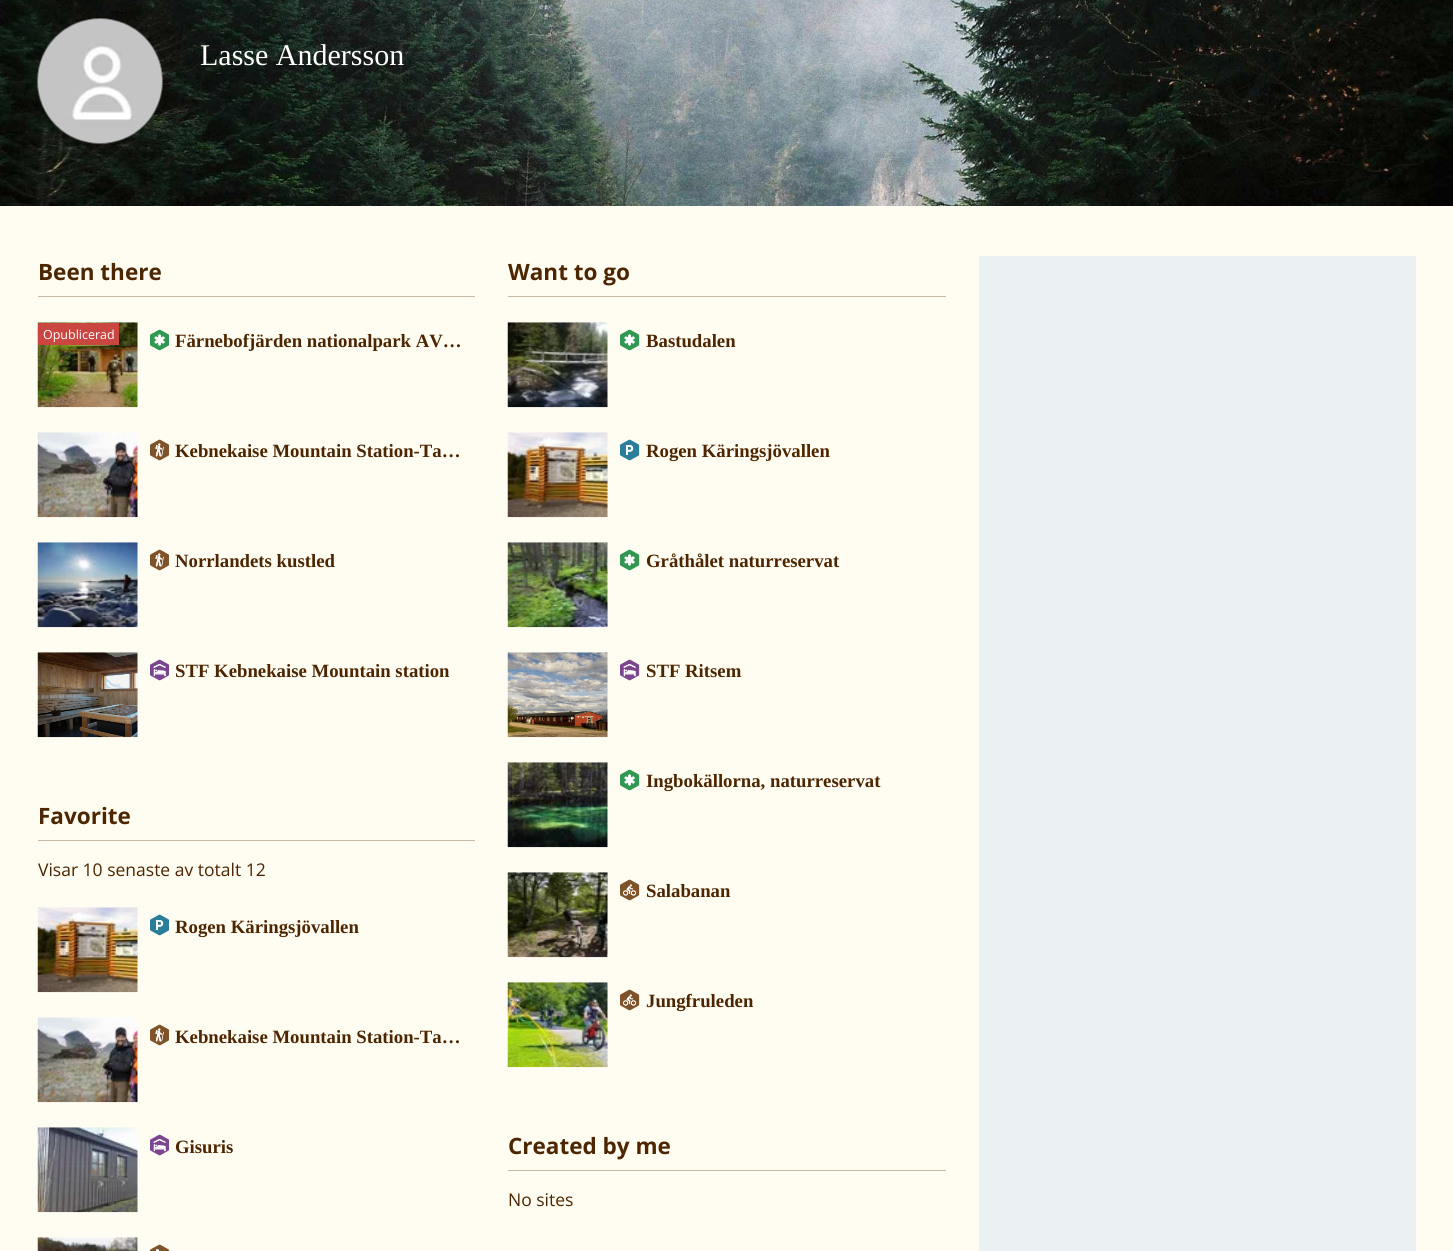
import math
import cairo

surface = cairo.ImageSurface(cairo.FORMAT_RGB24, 1453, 1251)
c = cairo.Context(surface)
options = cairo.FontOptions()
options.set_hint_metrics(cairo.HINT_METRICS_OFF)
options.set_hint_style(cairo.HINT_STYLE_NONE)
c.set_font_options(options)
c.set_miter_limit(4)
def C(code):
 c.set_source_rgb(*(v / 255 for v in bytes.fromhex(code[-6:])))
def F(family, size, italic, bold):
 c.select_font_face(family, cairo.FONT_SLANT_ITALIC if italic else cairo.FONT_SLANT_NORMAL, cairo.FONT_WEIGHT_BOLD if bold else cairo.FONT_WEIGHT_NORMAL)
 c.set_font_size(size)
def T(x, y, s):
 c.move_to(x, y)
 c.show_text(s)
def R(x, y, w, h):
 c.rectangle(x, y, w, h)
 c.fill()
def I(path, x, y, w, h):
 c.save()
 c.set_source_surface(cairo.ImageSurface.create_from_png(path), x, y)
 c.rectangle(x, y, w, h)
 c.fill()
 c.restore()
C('fffcf2')
c.paint()
I('1.png',0,0,1453,206)
I('2.png',37,18,126,126)
F('Liberation Serif',30,0,0)
C('ffffff')
T(200,65,'Lasse Andersson')
C('c6b9a5')
R(38,296,437,1)
F('Open Sans',22.5,0,1)
C('4d2600')
T(38,280,'Been there')
I('3.png',37,322,101,86)
C('ca4641')
R(38,323,81,22)
F('Open Sans',12.5,0,0)
C('ffffff')
T(43,339,'Opublicerad')
I('4.png',150,329,19,22)
F('Liberation Serif',18.75,0,1)
C('4d2600')
T(175,347,'Färnebofjärden nationalpark AV…')
I('5.png',37,432,101,86)
I('6.png',150,439,19,22)
T(175,457,'Kebnekaise Mountain Station-Ta…')
I('7.png',37,542,101,86)
I('6.png',150,549,19,22)
T(175,567,'Norrlandets kustled')
I('8.png',37,652,101,86)
I('9.png',150,659,19,22)
T(175,677,'STF Kebnekaise Mountain station')
C('c6b9a5')
R(38,840,437,1)
F('Open Sans',22.5,0,1)
C('4d2600')
T(38,824,'Favorite')
F('Open Sans',17.5,0,0)
T(38,876,'Visar 10 senaste av totalt 12')
I('10.png',37,907,101,86)
I('11.png',150,914,19,22)
F('Liberation Serif',18.75,0,1)
T(175,933,'Rogen Käringsjövallen')
I('5.png',37,1017,101,86)
I('6.png',150,1024,19,22)
T(175,1043,'Kebnekaise Mountain Station-Ta…')
I('12.png',37,1127,101,86)
I('9.png',150,1134,19,22)
T(175,1153,'Gisuris')
I('13.png',37,1237,101,14)
I('14.png',150,1244,19,7)
C('c6b9a5')
R(508,296,438,1)
F('Open Sans',22.5,0,1)
C('4d2600')
T(508,280,'Want to go')
I('15.png',507,322,101,86)
I('16.png',620,329,20,22)
F('Liberation Serif',18.75,0,1)
T(646,347,'Bastudalen')
I('10.png',507,432,101,86)
I('17.png',620,439,20,22)
T(646,457,'Rogen Käringsjövallen')
I('18.png',507,542,101,86)
I('16.png',620,549,20,22)
T(646,567,'Gråthålet naturreservat')
I('19.png',507,652,101,86)
I('20.png',620,659,20,22)
T(646,677,'STF Ritsem')
I('21.png',507,762,101,86)
I('16.png',620,769,20,22)
T(646,787,'Ingbokällorna, naturreservat')
I('22.png',507,872,101,86)
I('23.png',620,879,20,22)
T(646,897,'Salabanan')
I('24.png',507,982,101,86)
I('23.png',620,989,20,22)
T(646,1007,'Jungfruleden')
C('c6b9a5')
R(508,1170,438,1)
F('Open Sans',22.5,0,1)
C('4d2600')
T(508,1154,'Created by me')
F('Open Sans',17.5,0,0)
T(508,1206,'No sites')
C('ebf1f3')
R(979,256,437,995)
surface.write_to_png('o.png')
